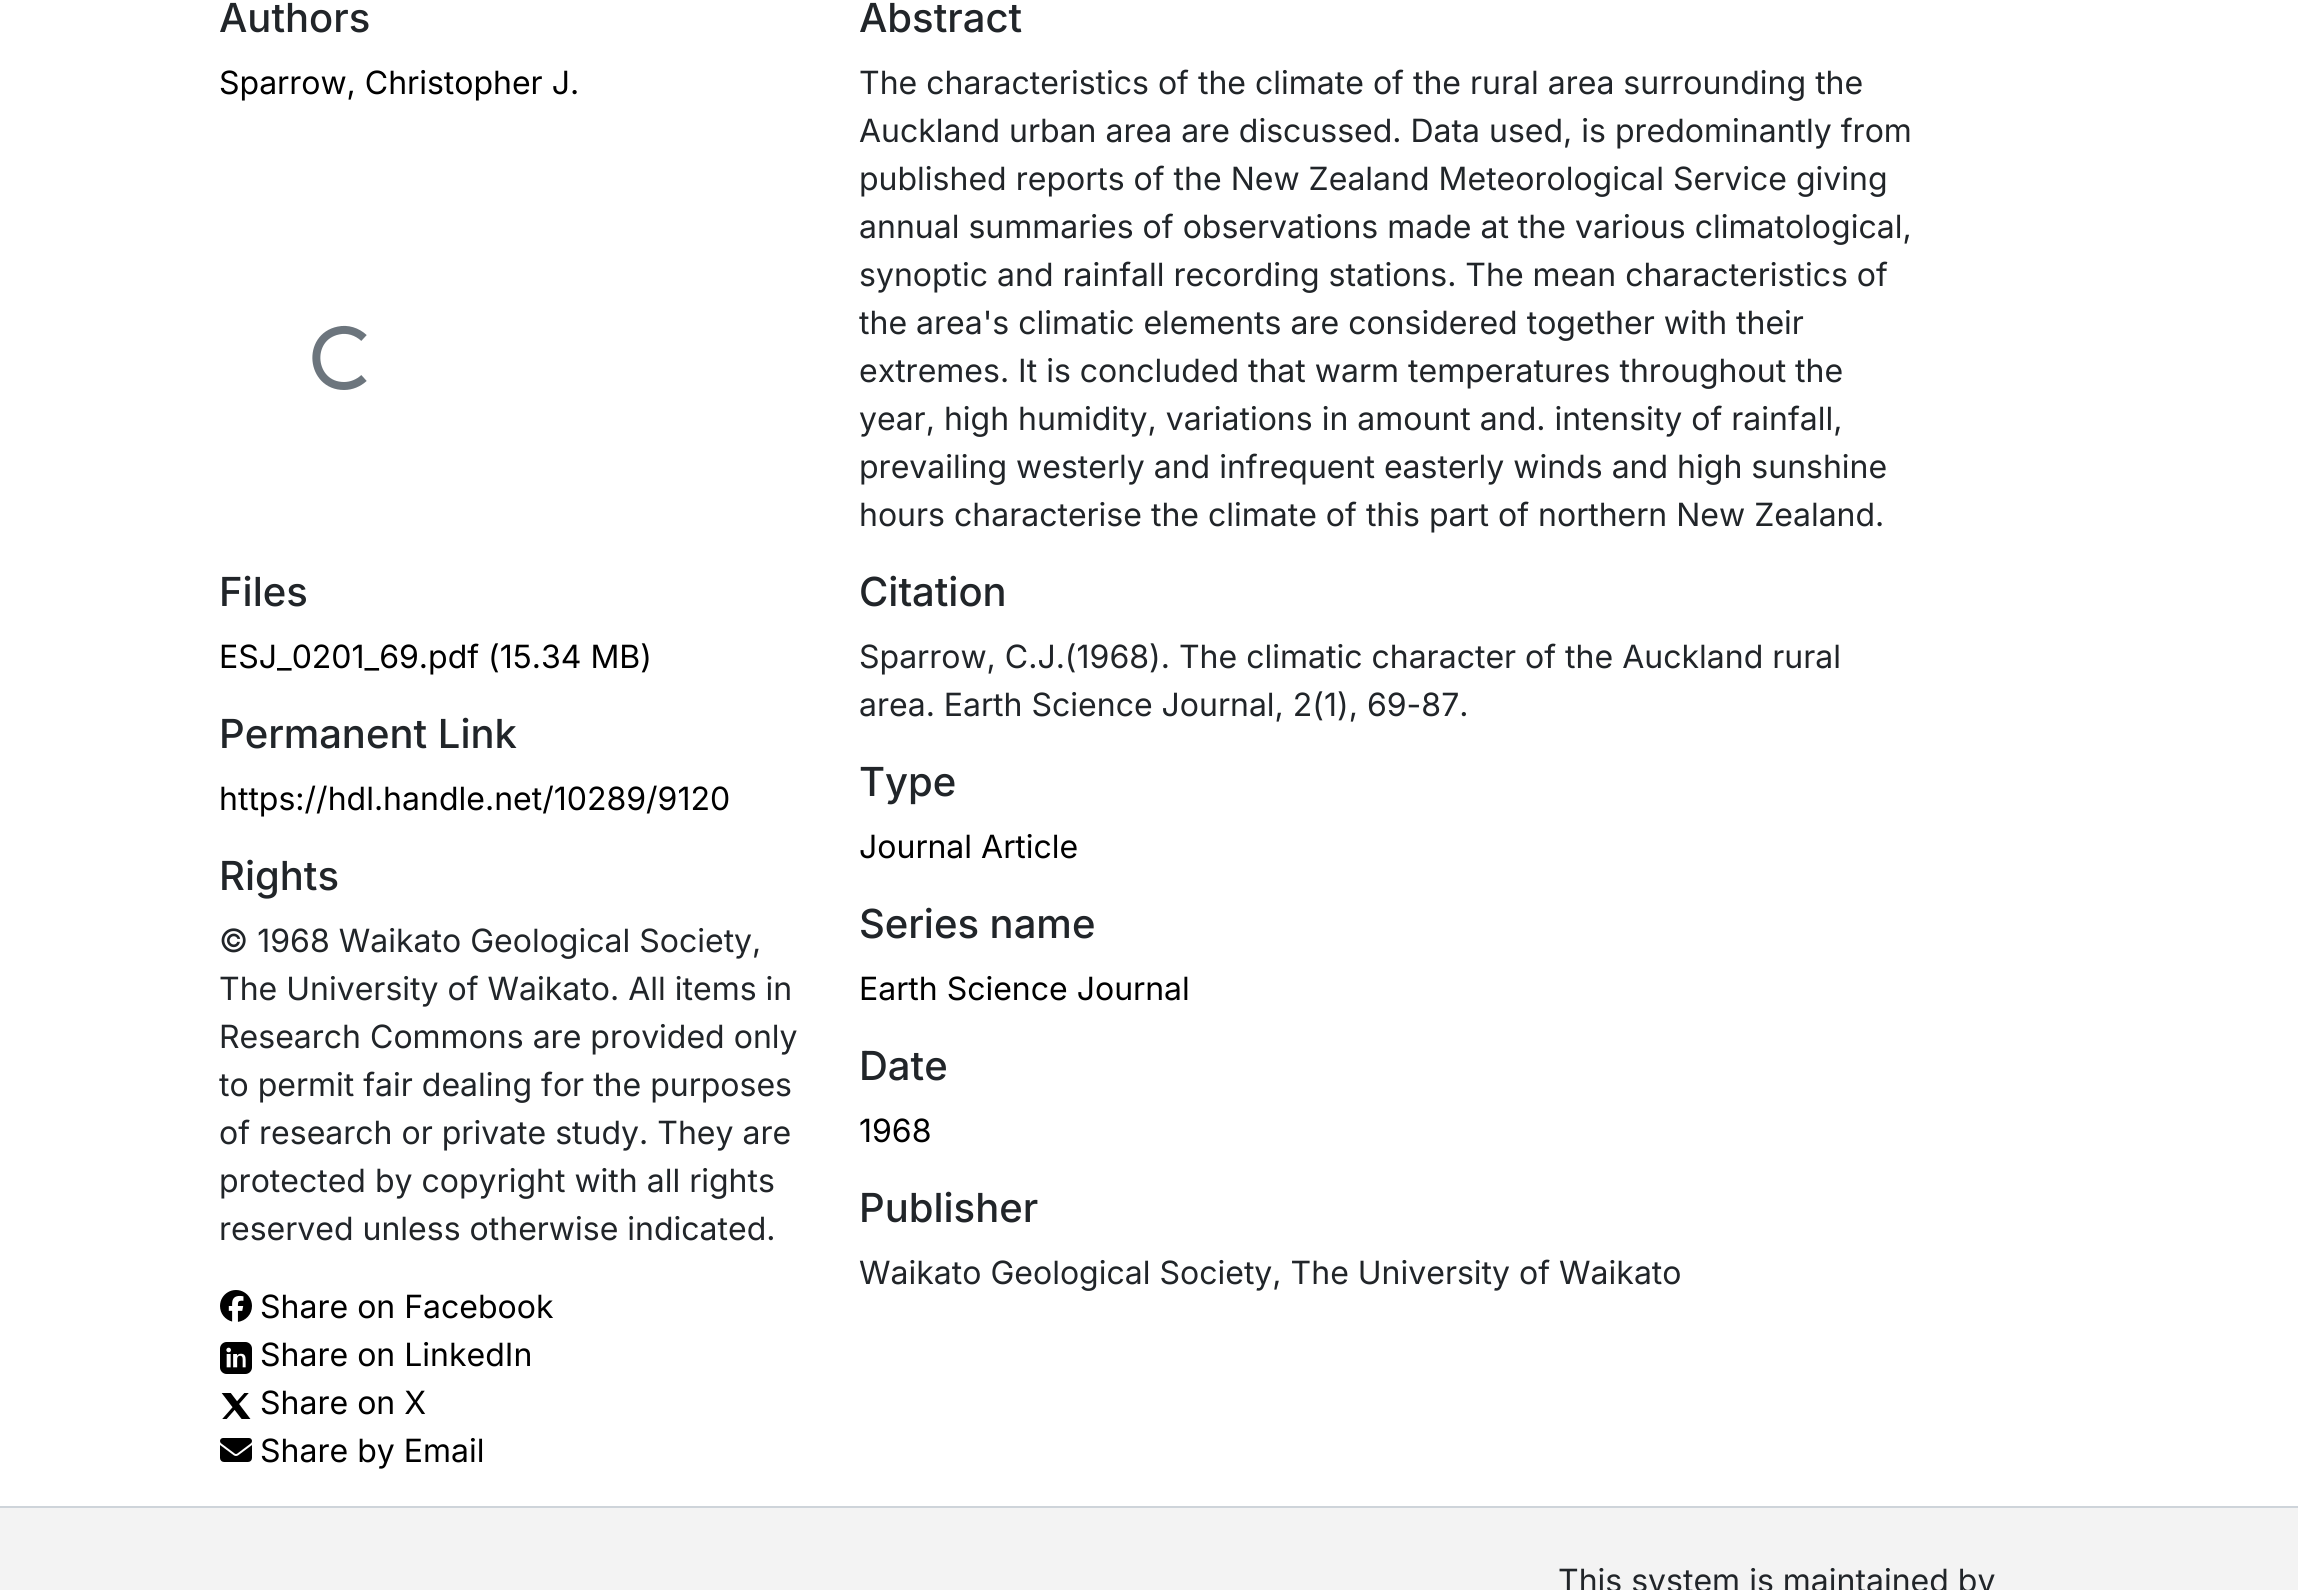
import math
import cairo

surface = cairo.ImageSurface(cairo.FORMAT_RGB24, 2298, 1590)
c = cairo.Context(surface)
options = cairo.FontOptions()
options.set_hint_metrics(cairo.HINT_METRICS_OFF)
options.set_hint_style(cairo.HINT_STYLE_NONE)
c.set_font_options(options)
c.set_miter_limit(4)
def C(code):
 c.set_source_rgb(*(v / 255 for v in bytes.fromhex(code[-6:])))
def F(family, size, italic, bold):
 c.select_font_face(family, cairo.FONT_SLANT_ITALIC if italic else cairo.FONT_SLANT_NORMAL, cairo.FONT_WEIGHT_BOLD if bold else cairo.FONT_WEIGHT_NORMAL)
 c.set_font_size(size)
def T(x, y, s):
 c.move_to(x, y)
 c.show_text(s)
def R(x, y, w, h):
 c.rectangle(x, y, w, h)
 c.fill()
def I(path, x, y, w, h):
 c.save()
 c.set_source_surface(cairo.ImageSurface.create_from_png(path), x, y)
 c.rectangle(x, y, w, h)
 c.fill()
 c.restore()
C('ffffff')
c.paint()
F('Inter Medium',40,0,0)
C('212529')
T(219,32,'Authors')
F('Inter',32,0,0)
C('000000')
T(219,94,'Sparrow, Christopher J.')
c.new_path()
c.move_to(364,378)
c.curve_to(358.5,383,351.5,386,344,386)
c.curve_to(310.5,386,306,337,338.5,330.5)
c.curve_to(347.5,328.5,357,331.5,364,338)
C('6c757d')
c.set_line_width(8)
c.stroke()
F('Inter Medium',40,0,0)
C('212529')
T(219,606,'Files')
F('Inter',32,0,0)
C('000000')
T(219,668,'ESJ_0201_69.pdf (15.34 MB)')
F('Inter Medium',40,0,0)
C('212529')
T(219,748,'Permanent Link')
F('Inter',32,0,0)
C('000000')
T(219,810,'https://hdl.handle.net/10289/9120')
F('Inter Medium',40,0,0)
C('212529')
T(219,890,'Rights')
F('Inter',32,0,0)
T(219,952,'© 1968 Waikato Geological Society,')
T(219,1000,'The University of Waikato. All items in')
T(219,1048,'Research Commons are provided only')
T(219,1096,'to permit fair dealing for the purposes')
T(219,1144,'of research or private study. They are')
T(219,1192,'protected by copyright with all rights')
T(219,1240,'reserved unless otherwise indicated.')
I('1.png',220,1290,32,32)
C('000000')
T(260,1318,'Share on Facebook')
I('2.png',220,1342,32,32)
T(260,1366,'Share on LinkedIn')
I('3.png',221,1393,30,26)
T(260,1414,'Share on X')
I('4.png',220,1438,32,24)
T(260,1462,'Share by Email')
F('Inter Medium',40,0,0)
C('212529')
T(859,32,'Abstract')
F('Inter',32,0,0)
T(859,94,'The characteristics of the climate of the rural area surrounding the')
T(859,142,'Auckland urban area are discussed. Data used, is predominantly from')
T(859,190,'published reports of the New Zealand Meteorological Service giving')
T(859,238,'annual summaries of observations made at the various climatological,')
T(859,286,'synoptic and rainfall recording stations. The mean characteristics of')
T(859,334,'the area\'s climatic elements are considered together with their')
T(859,382,'extremes. It is concluded that warm temperatures throughout the')
T(859,430,'year, high humidity, variations in amount and. intensity of rainfall,')
T(859,478,'prevailing westerly and infrequent easterly winds and high sunshine')
T(859,526,'hours characterise the climate of this part of northern New Zealand.')
F('Inter Medium',40,0,0)
T(859,606,'Citation')
F('Inter',32,0,0)
T(859,668,'Sparrow, C.J.(1968). The climatic character of the Auckland rural')
T(859,716,'area. Earth Science Journal, 2(1), 69-87.')
F('Inter Medium',40,0,0)
T(859,796,'Type')
F('Inter',32,0,0)
C('000000')
T(859,858,'Journal Article')
F('Inter Medium',40,0,0)
C('212529')
T(859,938,'Series name')
F('Inter',32,0,0)
C('000000')
T(859,1000,'Earth Science Journal')
F('Inter Medium',40,0,0)
C('212529')
T(859,1080,'Date')
F('Inter',32,0,0)
C('000000')
T(859,1142,'1968')
F('Inter Medium',40,0,0)
C('212529')
T(859,1222,'Publisher')
F('Inter',32,0,0)
T(859,1284,'Waikato Geological Society, The University of Waikato')
C('ced4da')
R(0,1506,2298,2)
C('f3f3f3')
R(0,1508,2298,82)
C('212529')
T(1558,1592,'This system is maintained by')
surface.write_to_png('o.png')
